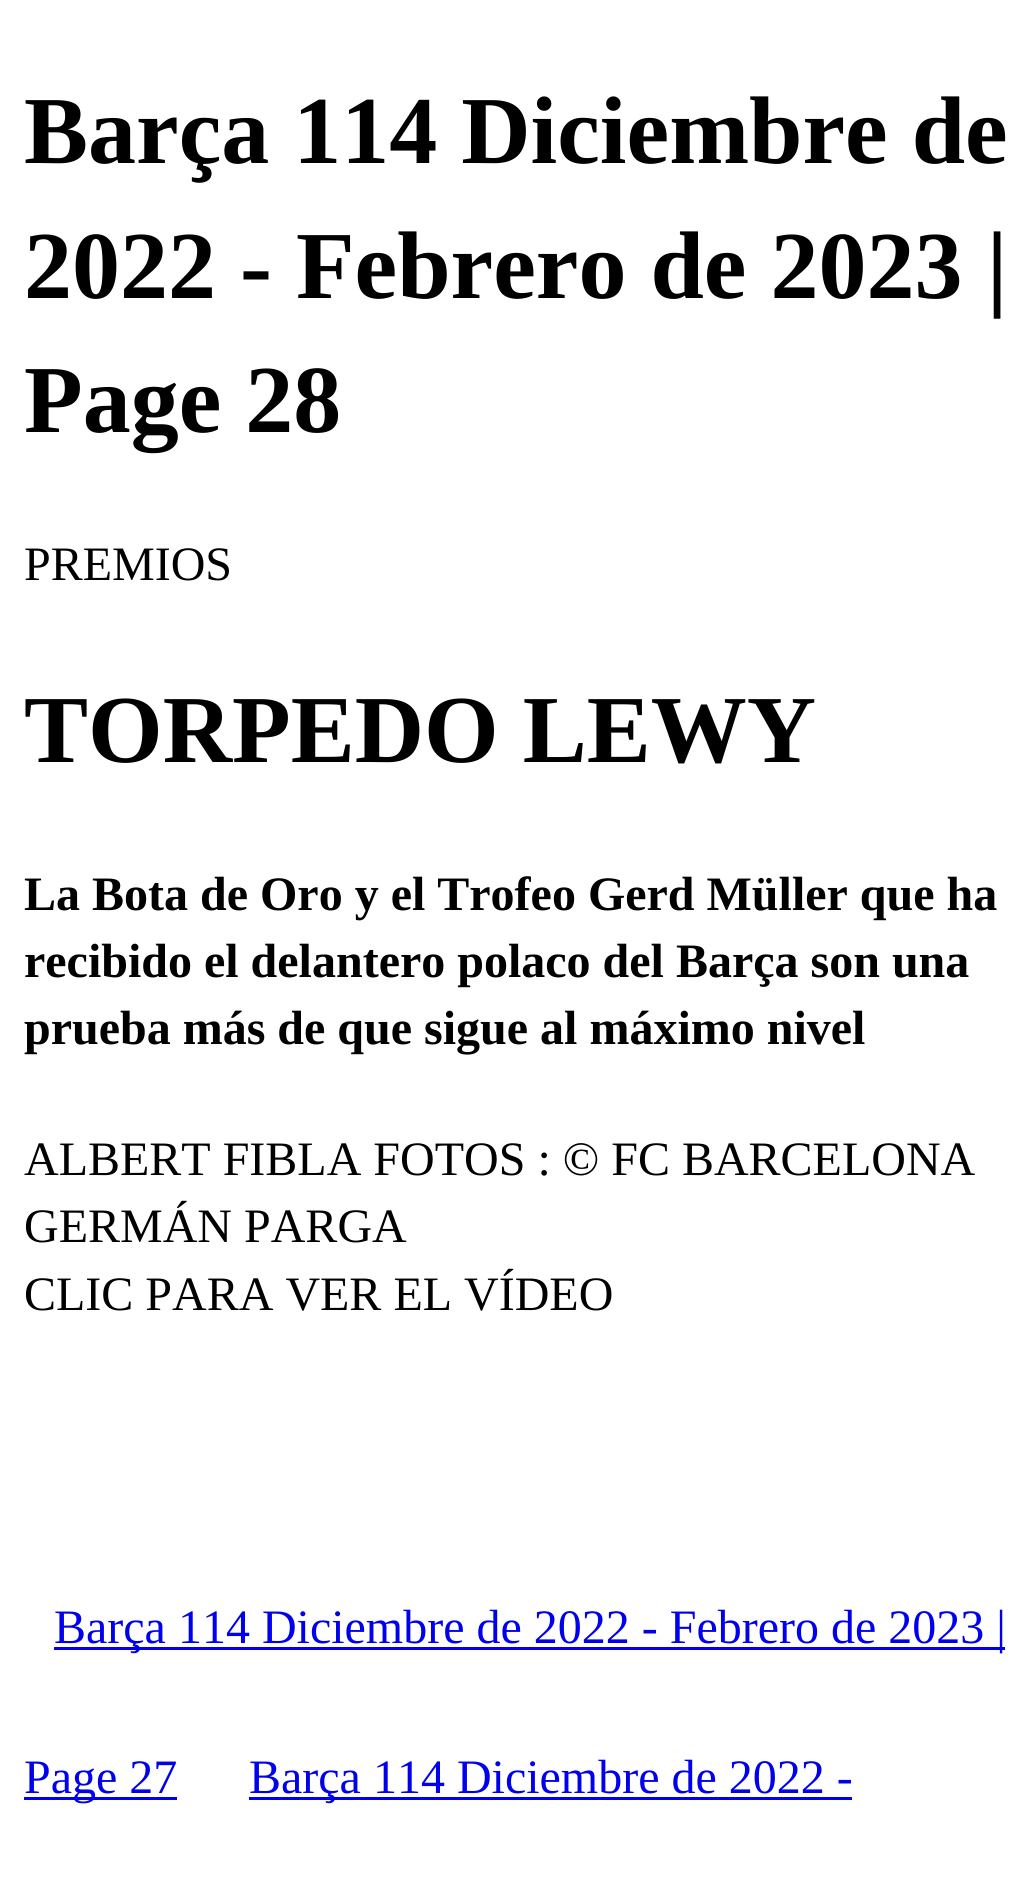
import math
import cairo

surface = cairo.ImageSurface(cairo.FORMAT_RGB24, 1031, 1882)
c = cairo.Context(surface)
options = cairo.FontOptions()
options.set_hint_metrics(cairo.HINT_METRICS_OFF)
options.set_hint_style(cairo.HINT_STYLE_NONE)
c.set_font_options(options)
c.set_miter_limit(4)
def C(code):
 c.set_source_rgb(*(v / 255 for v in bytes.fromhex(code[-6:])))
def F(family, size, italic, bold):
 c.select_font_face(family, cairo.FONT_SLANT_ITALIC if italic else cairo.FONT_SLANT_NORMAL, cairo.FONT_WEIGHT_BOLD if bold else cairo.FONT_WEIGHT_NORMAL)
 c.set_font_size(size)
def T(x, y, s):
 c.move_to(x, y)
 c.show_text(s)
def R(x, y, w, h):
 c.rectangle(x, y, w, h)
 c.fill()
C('ffffff')
c.paint()
F('Liberation Serif',96,0,1)
C('000000')
T(24,163,'Barça 114 Diciembre de')
T(24,298,'2022 - Febrero de 2023 |')
T(24,432,'Page 28')
F('Liberation Serif',48,0,0)
T(24,580,'PREMIOS')
F('Liberation Serif',96,0,1)
T(24,762,'TORPEDO LEWY')
F('Liberation Serif',48,0,1)
T(24,910,'La Bota de Oro y el Trofeo Gerd Müller que ha')
T(24,977,'recibido el delantero polaco del Barça son una')
T(24,1044,'prueba más de que sigue al máximo nivel')
F('Liberation Serif',48,0,0)
T(24,1175,'ALBERT FIBLA FOTOS : © FC BARCELONA')
T(24,1242,'GERMÁN PARGA')
T(24,1310,'CLIC PARA VER EL VÍDEO')
C('0000ee')
R(54,1647,951,3)
T(54,1643,'Barça 114 Diciembre de 2022 - Febrero de 2023 |')
R(24,1797,153,3)
T(24,1793,'Page 27')
R(249,1797,603,3)
T(249,1793,'Barça 114 Diciembre de 2022 -')
surface.write_to_png('o.png')
